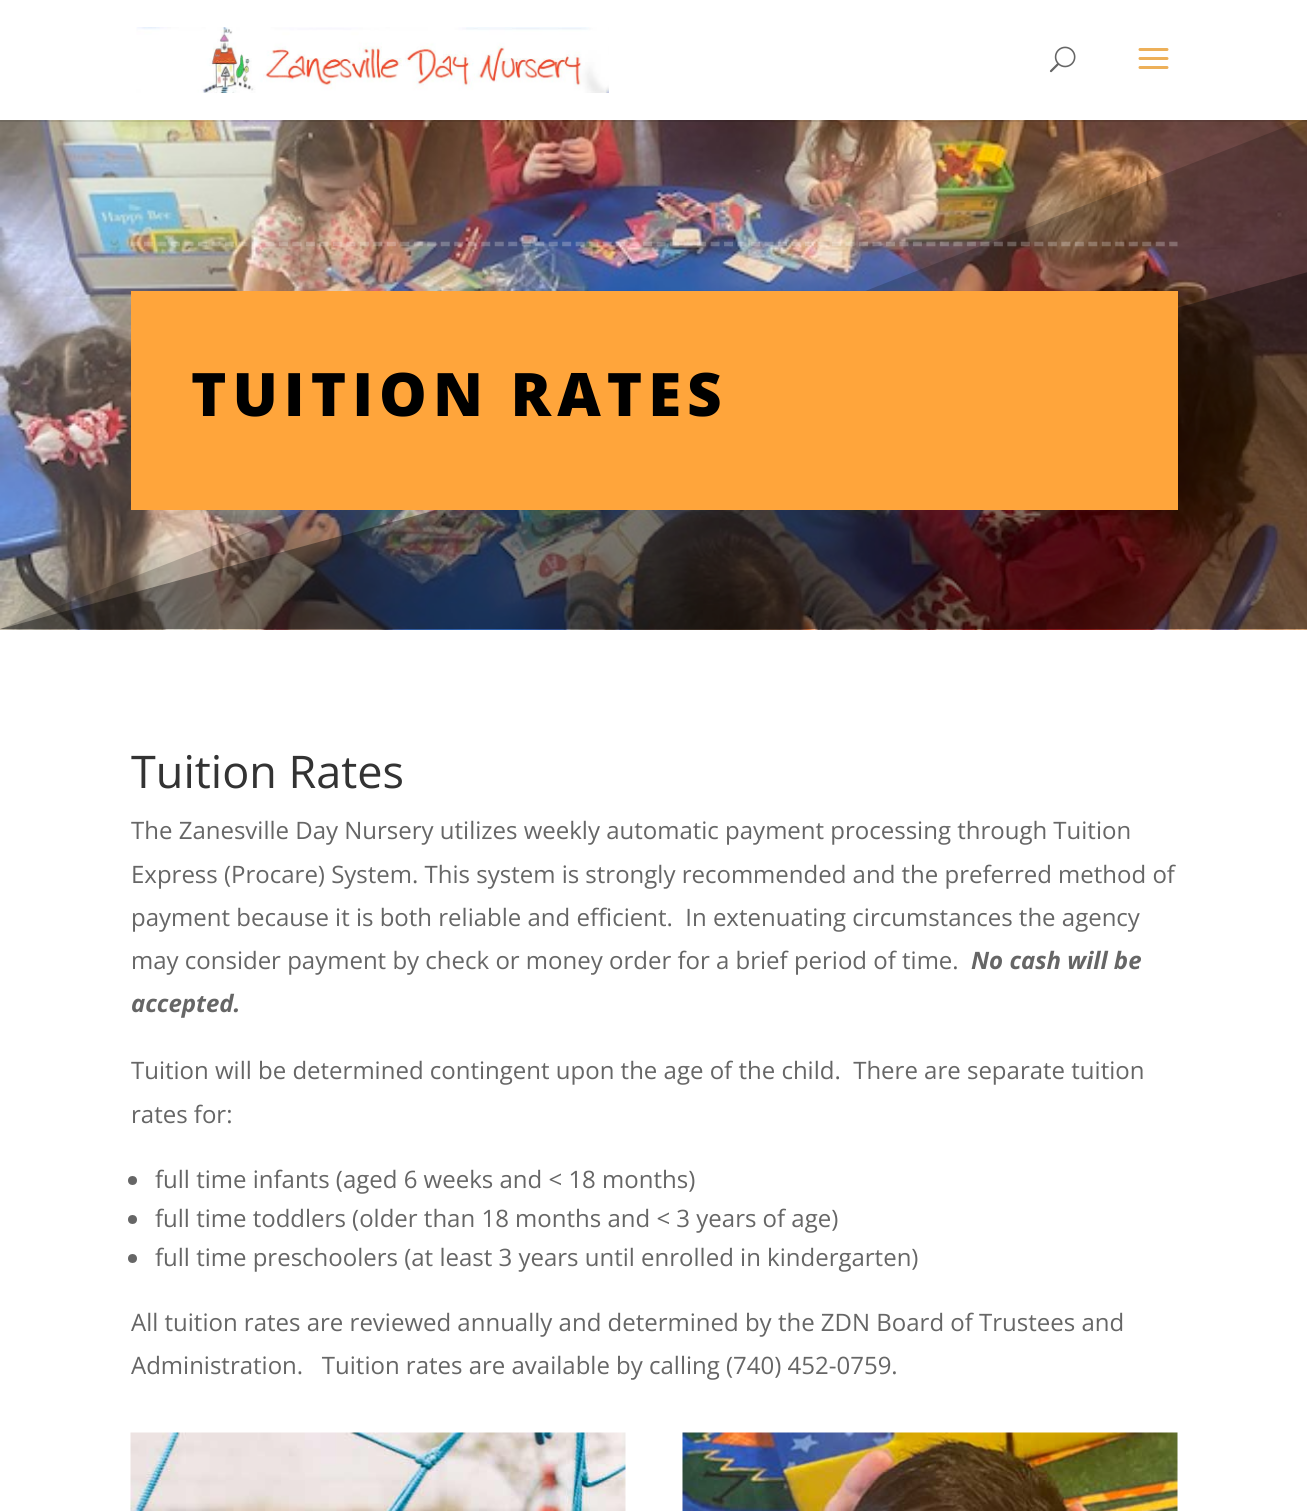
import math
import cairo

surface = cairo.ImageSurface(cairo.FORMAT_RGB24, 1307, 1511)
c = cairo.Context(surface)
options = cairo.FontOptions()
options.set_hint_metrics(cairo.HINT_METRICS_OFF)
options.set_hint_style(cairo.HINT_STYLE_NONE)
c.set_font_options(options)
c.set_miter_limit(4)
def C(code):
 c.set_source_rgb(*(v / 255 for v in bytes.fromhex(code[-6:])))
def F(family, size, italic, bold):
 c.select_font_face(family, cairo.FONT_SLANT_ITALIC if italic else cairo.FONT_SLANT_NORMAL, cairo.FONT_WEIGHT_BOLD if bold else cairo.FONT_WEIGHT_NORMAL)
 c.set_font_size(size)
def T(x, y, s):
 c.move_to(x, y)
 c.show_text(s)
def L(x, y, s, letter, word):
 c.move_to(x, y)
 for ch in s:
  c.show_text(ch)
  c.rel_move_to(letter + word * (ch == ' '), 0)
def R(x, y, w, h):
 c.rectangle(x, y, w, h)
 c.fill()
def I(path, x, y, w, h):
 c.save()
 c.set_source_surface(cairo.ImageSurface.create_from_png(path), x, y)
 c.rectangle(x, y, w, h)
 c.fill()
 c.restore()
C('ffffff')
c.paint()
I('4.png',0,120,1307,510)
c.set_source_rgba(0,0,0,0.1)
R(0,120,1307,2)
I('1.png',136,27,473,66)
I('2.png',1049,46,27,27)
I('3.png',1138,48,31,21)
c.new_path()
c.move_to(130.5,244)
c.line_to(1177.5,244)
c.set_source_rgba(1,1,1,0.24)
c.set_line_width(4.5)
c.set_dash([9,4.49])
c.stroke()
c.set_source_rgba(0,0,0,0.38)
c.new_path()
c.move_to(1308,272)
c.line_to(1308,629)
c.line_to(0,629)
c.close_path()
c.fill()
C('ffa53b')
R(131,291,1047,219)
F('Open Sans ExtraBold',60,0,0)
C('000000')
L(191,416,'TUITION RATES',6,0)
F('Open Sans',45,0,0)
C('333333')
T(131,788,'Tuition Rates')
F('Open Sans',24,0,0)
C('666666')
T(131,839,'The Zanesville Day Nursery utilizes weekly automatic payment processing through Tuition')
T(131,883,'Express (Procare) System. This system is strongly recommended and the preferred method of')
T(131,926,'payment because it is both reliable and efficient.  In extenuating circumstances the agency')
T(131,969,'may consider payment by check or money order for a brief period of time.')
F('Open Sans',24,1,1)
T(971,969,'No cash will be')
T(131,1012,'accepted.')
F('Open Sans',24,0,0)
T(131,1079,'Tuition will be determined contingent upon the age of the child.  There are separate tuition')
T(131,1123,'rates for:')
c.new_path()
c.arc(132.5,1180.5,4.5,0,2 * math.pi)
c.fill()
T(155,1188,'full time infants (aged 6 weeks and < 18 months)')
c.new_path()
c.arc(132.5,1219.5,4.5,0,2 * math.pi)
c.fill()
T(155,1227,'full time toddlers (older than 18 months and < 3 years of age)')
c.new_path()
c.arc(132.5,1258.5,4.5,0,2 * math.pi)
c.fill()
T(155,1266,'full time preschoolers (at least 3 years until enrolled in kindergarten)')
T(131,1331,'All tuition rates are reviewed annually and determined by the ZDN Board of Trustees and')
T(131,1374,'Administration.   Tuition rates are available by calling (740) 452-0759.')
I('5.png',130,1432,496,79)
I('6.png',682,1432,496,79)
surface.write_to_png('o.png')
